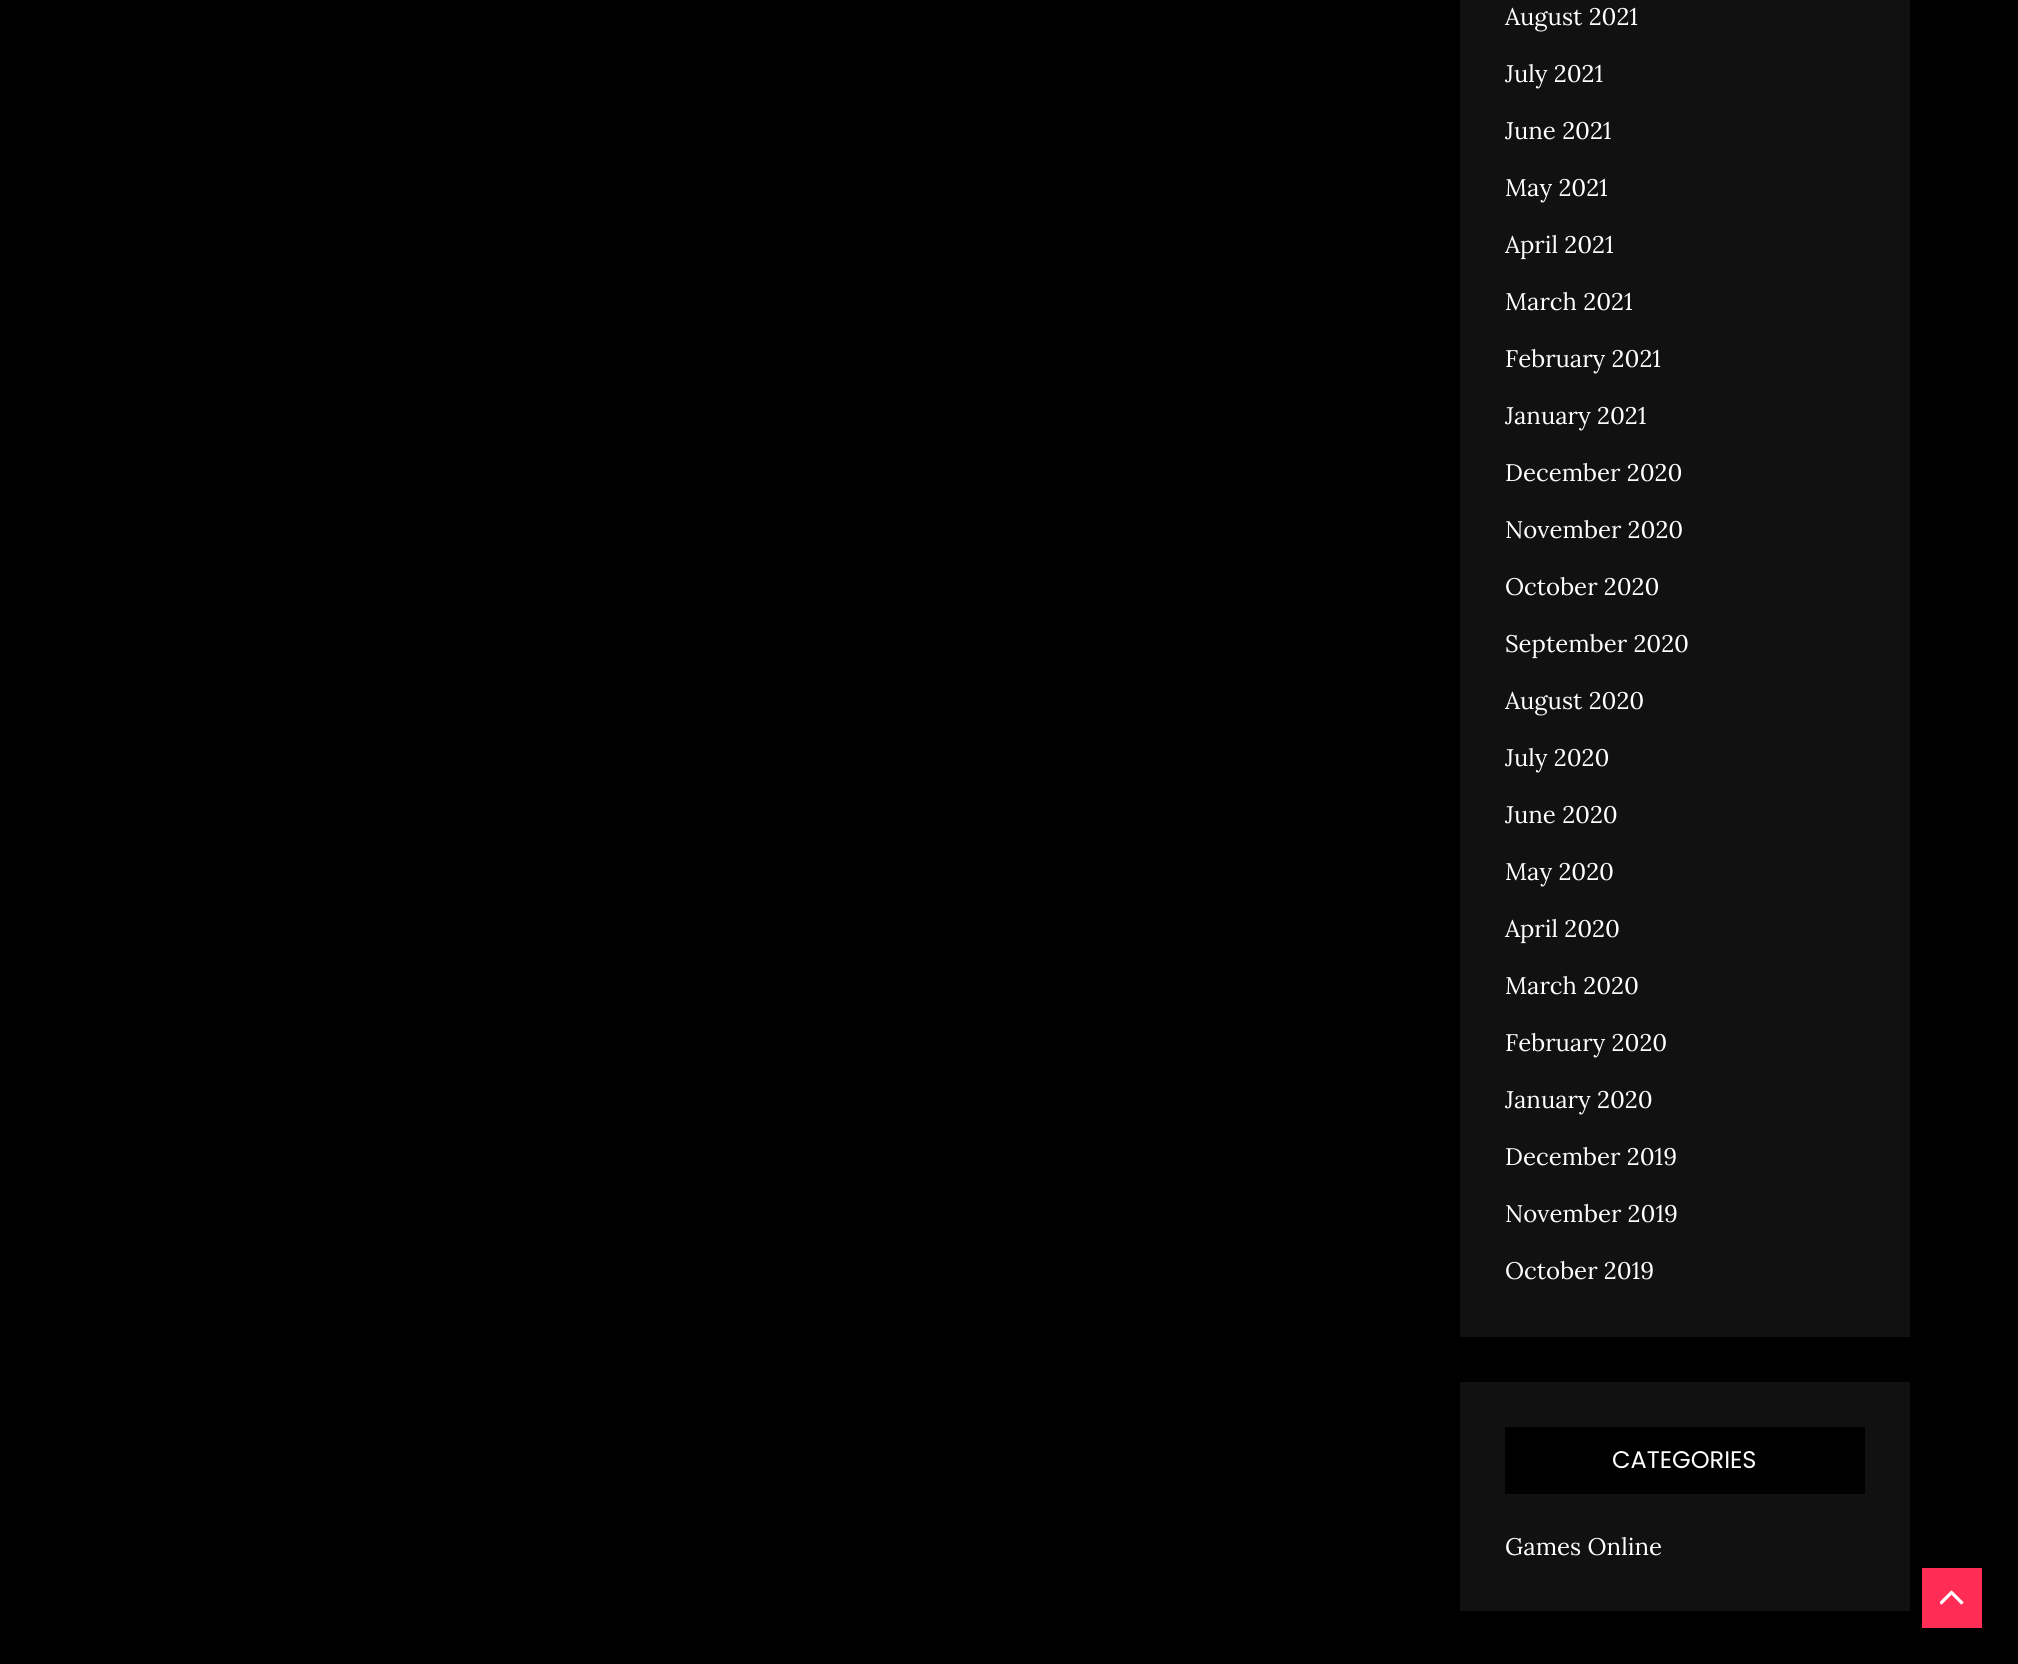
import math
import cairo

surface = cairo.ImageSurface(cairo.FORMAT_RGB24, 2018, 1664)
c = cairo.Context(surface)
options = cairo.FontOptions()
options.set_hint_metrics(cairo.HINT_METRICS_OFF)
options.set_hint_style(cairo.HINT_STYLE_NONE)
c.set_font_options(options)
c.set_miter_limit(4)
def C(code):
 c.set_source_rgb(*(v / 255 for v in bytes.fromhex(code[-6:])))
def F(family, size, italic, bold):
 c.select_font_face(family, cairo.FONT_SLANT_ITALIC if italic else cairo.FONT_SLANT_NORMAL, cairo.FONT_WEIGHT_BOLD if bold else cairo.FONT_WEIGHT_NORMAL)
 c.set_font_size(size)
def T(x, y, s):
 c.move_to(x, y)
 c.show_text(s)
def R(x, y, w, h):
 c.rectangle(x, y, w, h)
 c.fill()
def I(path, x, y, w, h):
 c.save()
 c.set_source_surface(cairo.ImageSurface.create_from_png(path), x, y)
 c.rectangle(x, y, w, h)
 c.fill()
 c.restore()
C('000000')
c.paint()
C('111111')
R(1460,0,450,1337)
F('Lora',24,0,0)
C('ffffff')
T(1505,25,'August 2021')
T(1505,82,'July 2021')
T(1505,139,'June 2021')
T(1505,196,'May 2021')
T(1505,253,'April 2021')
T(1505,310,'March 2021')
T(1505,367,'February 2021')
T(1505,424,'January 2021')
T(1505,481,'December 2020')
T(1505,538,'November 2020')
T(1505,595,'October 2020')
T(1505,652,'September 2020')
T(1505,709,'August 2020')
T(1505,766,'July 2020')
T(1505,823,'June 2020')
T(1505,880,'May 2020')
T(1505,937,'April 2020')
T(1505,994,'March 2020')
T(1505,1051,'February 2020')
T(1505,1108,'January 2020')
T(1505,1165,'December 2019')
T(1505,1222,'November 2019')
T(1505,1279,'October 2019')
C('111111')
R(1460,1382,450,229)
C('000000')
R(1505,1427,360,67)
F('Poppins',24,0,0)
C('ffffff')
T(1612,1468,'CATEGORIES')
F('Lora',24,0,0)
T(1505,1555,'Games Online')
C('ff2d55')
R(1922,1568,60,60)
I('1.png',1940,1590,24,15)
surface.write_to_png('o.png')
